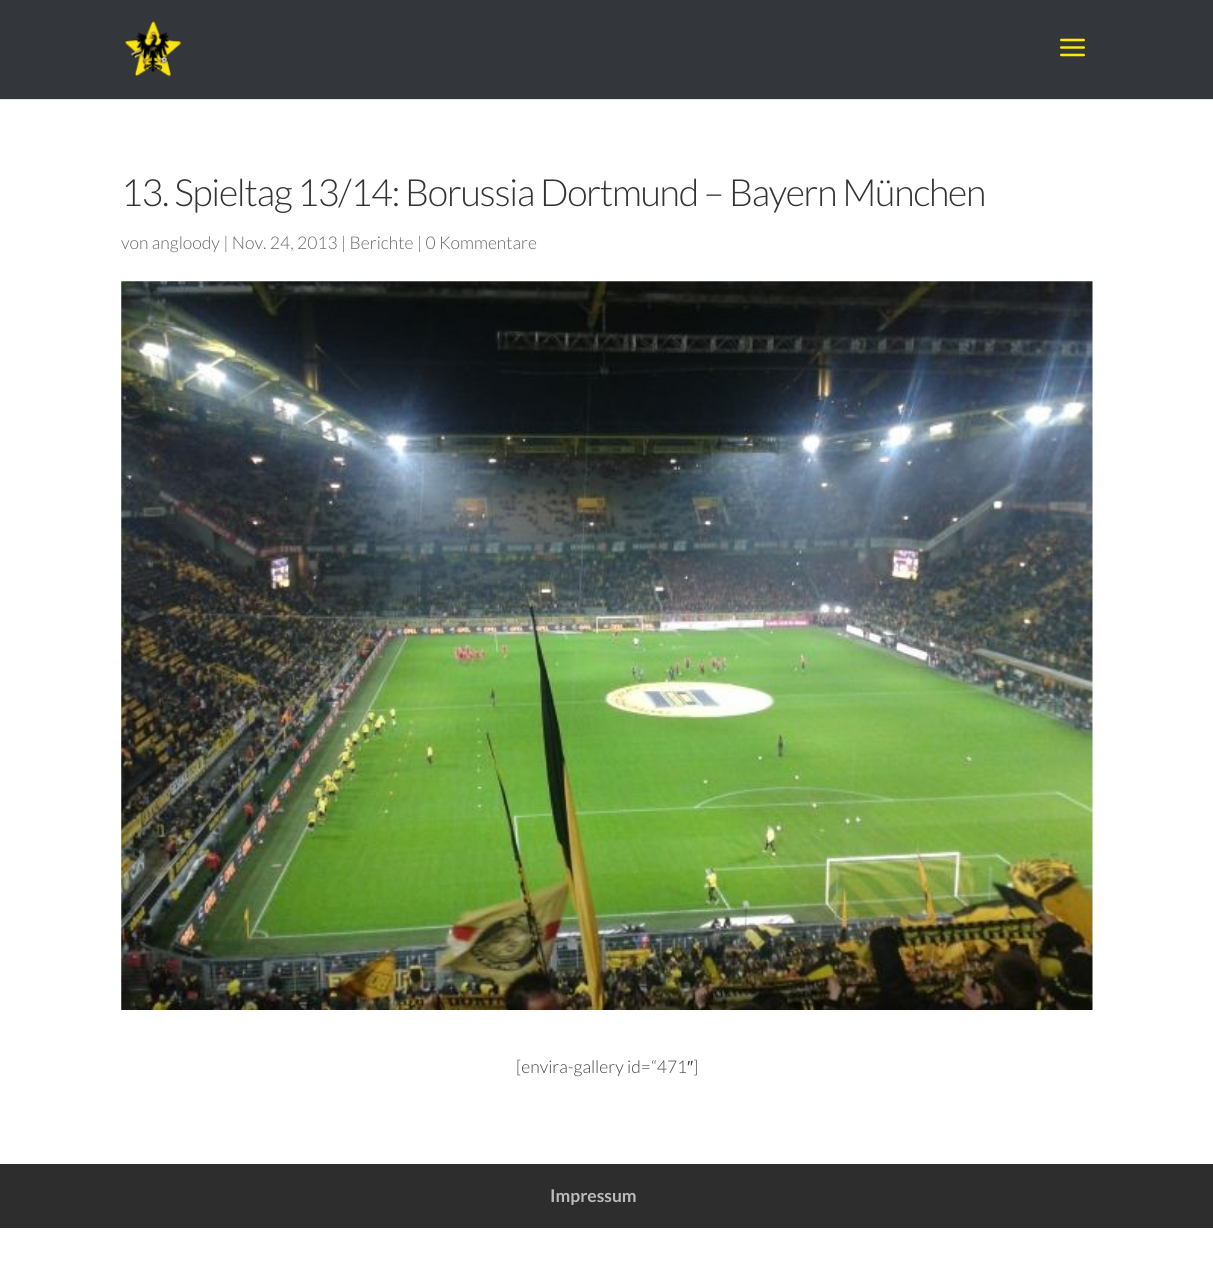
import math
import cairo

surface = cairo.ImageSurface(cairo.FORMAT_RGB24, 1213, 1277)
c = cairo.Context(surface)
options = cairo.FontOptions()
options.set_hint_metrics(cairo.HINT_METRICS_OFF)
options.set_hint_style(cairo.HINT_STYLE_NONE)
c.set_font_options(options)
c.set_miter_limit(4)
def C(code):
 c.set_source_rgb(*(v / 255 for v in bytes.fromhex(code[-6:])))
def F(family, size, italic, bold):
 c.select_font_face(family, cairo.FONT_SLANT_ITALIC if italic else cairo.FONT_SLANT_NORMAL, cairo.FONT_WEIGHT_BOLD if bold else cairo.FONT_WEIGHT_NORMAL)
 c.set_font_size(size)
def T(x, y, s):
 c.move_to(x, y)
 c.show_text(s)
def L(x, y, s, letter, word):
 c.move_to(x, y)
 for ch in s:
  c.show_text(ch)
  c.rel_move_to(letter + word * (ch == ' '), 0)
def R(x, y, w, h):
 c.rectangle(x, y, w, h)
 c.fill()
def I(path, x, y, w, h):
 c.save()
 c.set_source_surface(cairo.ImageSurface.create_from_png(path), x, y)
 c.rectangle(x, y, w, h)
 c.fill()
 c.restore()
C('ffffff')
c.paint()
C('e6e6e6')
c.new_path()
c.move_to(0,99)
c.line_to(0,100)
c.line_to(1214,100)
c.line_to(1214,0)
c.line_to(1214,99)
c.close_path()
c.fill()
C('33363b')
R(0,0,1213,99)
I('1.png',124,21,58,56)
I('2.png',1060,38,25,19)
F('Lato Light',37.5,0,0)
C('333333')
L(121,206,'13. Spieltag 13/14: Borussia Dortmund – Bayern München',-1.25,0)
F('Lato Light',17.5,0,0)
C('666666')
T(121,249,'von angloody | Nov. 24, 2013 | Berichte | 0 Kommentare')
I('3.png',121,281,972,729)
C('444444')
T(516,1073,'[envira-gallery id=“471')
F('Liberation Sans',17.5,0,0)
T(687,1073,'″')
F('Lato Light',17.5,0,0)
T(693,1073,']')
C('2d2d2d')
R(0,1164,1213,64)
F('Lato',17.5,0,1)
C('bbbbbb')
T(550,1202,'Impressum')
surface.write_to_png('o.png')
